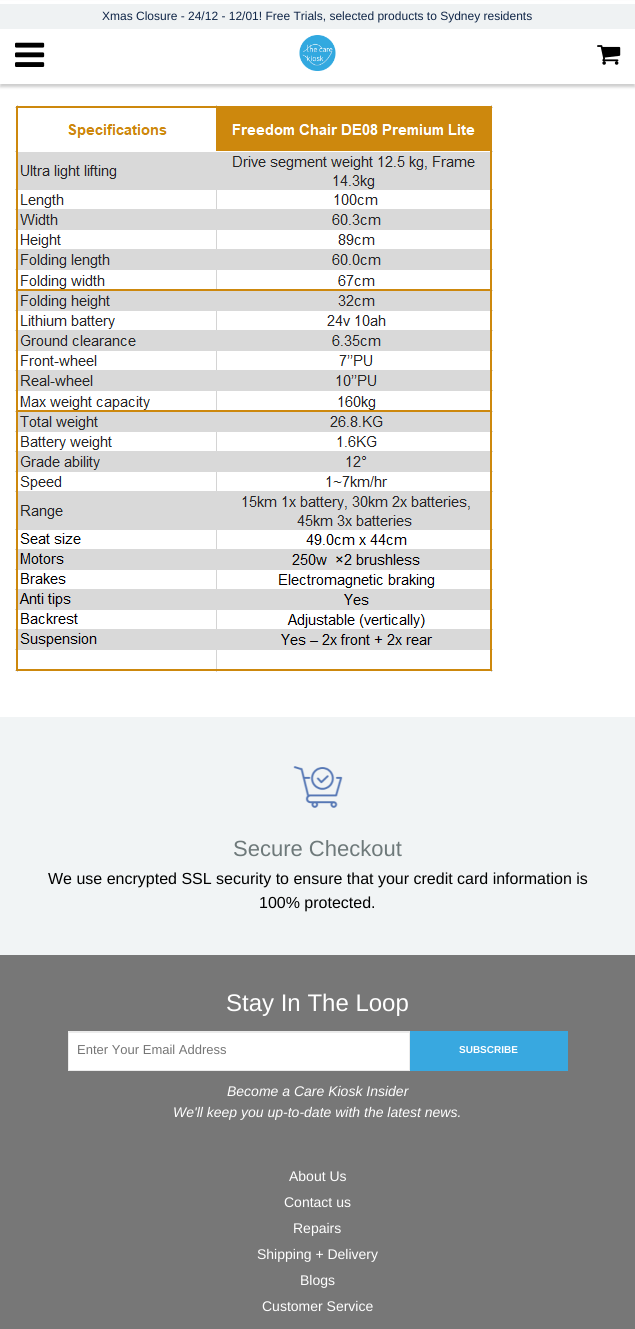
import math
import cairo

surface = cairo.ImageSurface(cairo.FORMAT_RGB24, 635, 1329)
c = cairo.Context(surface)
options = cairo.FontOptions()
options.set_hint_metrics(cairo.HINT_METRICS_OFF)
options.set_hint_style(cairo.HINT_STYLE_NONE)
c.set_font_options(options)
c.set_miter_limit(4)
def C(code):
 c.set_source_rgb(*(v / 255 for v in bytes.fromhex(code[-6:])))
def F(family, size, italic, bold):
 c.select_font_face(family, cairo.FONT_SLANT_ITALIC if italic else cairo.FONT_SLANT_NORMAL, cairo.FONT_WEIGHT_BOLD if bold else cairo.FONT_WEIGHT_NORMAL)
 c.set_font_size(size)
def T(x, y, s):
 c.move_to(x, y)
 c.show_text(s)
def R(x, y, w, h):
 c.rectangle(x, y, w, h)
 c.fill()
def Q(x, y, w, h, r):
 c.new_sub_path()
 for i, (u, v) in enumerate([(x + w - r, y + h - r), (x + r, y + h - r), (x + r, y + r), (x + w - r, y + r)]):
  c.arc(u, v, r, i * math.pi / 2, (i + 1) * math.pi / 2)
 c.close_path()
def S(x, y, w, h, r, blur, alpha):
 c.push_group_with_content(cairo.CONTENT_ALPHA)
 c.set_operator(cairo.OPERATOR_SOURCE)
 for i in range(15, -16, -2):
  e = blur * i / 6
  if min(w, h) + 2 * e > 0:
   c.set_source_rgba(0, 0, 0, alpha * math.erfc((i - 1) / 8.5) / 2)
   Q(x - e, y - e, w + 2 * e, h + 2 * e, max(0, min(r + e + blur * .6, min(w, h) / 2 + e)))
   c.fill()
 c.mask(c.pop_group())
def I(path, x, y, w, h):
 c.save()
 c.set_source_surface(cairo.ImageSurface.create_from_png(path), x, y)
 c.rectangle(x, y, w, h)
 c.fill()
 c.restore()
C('ffffff')
c.paint()
C('000000')
S(0,3,635,84,0,1.5,.2)
C('ffffff')
R(0,1,635,83)
C('eff2f3')
R(0,4,635,25)
F('Liberation Sans',12,0,0)
C('0f2547')
T(102,20,'Xmas Closure - 24/12 - 12/01! Free Trials, selected products to Sydney residents')
I('1.png',15,42,30,25)
I('2.png',299,35,37,36)
I('3.png',597,45,24,20)
I('4.png',15,105,478,567)
C('f1f4f5')
R(0,717,635,238)
I('5.png',293,766,50,42)
F('Liberation Sans',22,0,0)
C('6e797a')
T(233,856,'Secure Checkout')
F('Liberation Sans',16,0,0)
C('000000')
T(48,884,'We use encrypted SSL security to ensure that your credit card information is')
T(259,908,'100% protected.')
C('777777')
R(0,955,635,374)
F('Liberation Sans',24,0,0)
C('ffffff')
T(226,1011,'Stay In The Loop')
R(69,1033,340,37)
C('ececec')
R(69,1032,340,1)
c.rectangle(68.5,1031.5,341,39)
C('ebebeb')
c.set_line_width(1)
c.stroke()
F('Liberation Sans',13,0,0)
C('757575')
T(77,1054,'Enter Your Email Address')
C('38a8e0')
R(410,1031,158,40)
F('Liberation Sans',10,0,1)
C('ffffff')
T(459,1053,'SUBSCRIBE')
F('Liberation Sans',14,1,0)
T(227,1096,'Become a Care Kiosk Insider')
T(173,1117,'We\'ll keep you up-to-date with the latest news.')
F('Liberation Sans',14,0,0)
T(289,1181,'About Us')
T(284,1207,'Contact us')
T(293,1233,'Repairs')
T(257,1259,'Shipping + Delivery')
T(300,1285,'Blogs')
T(262,1311,'Customer Service')
surface.write_to_png('o.png')
